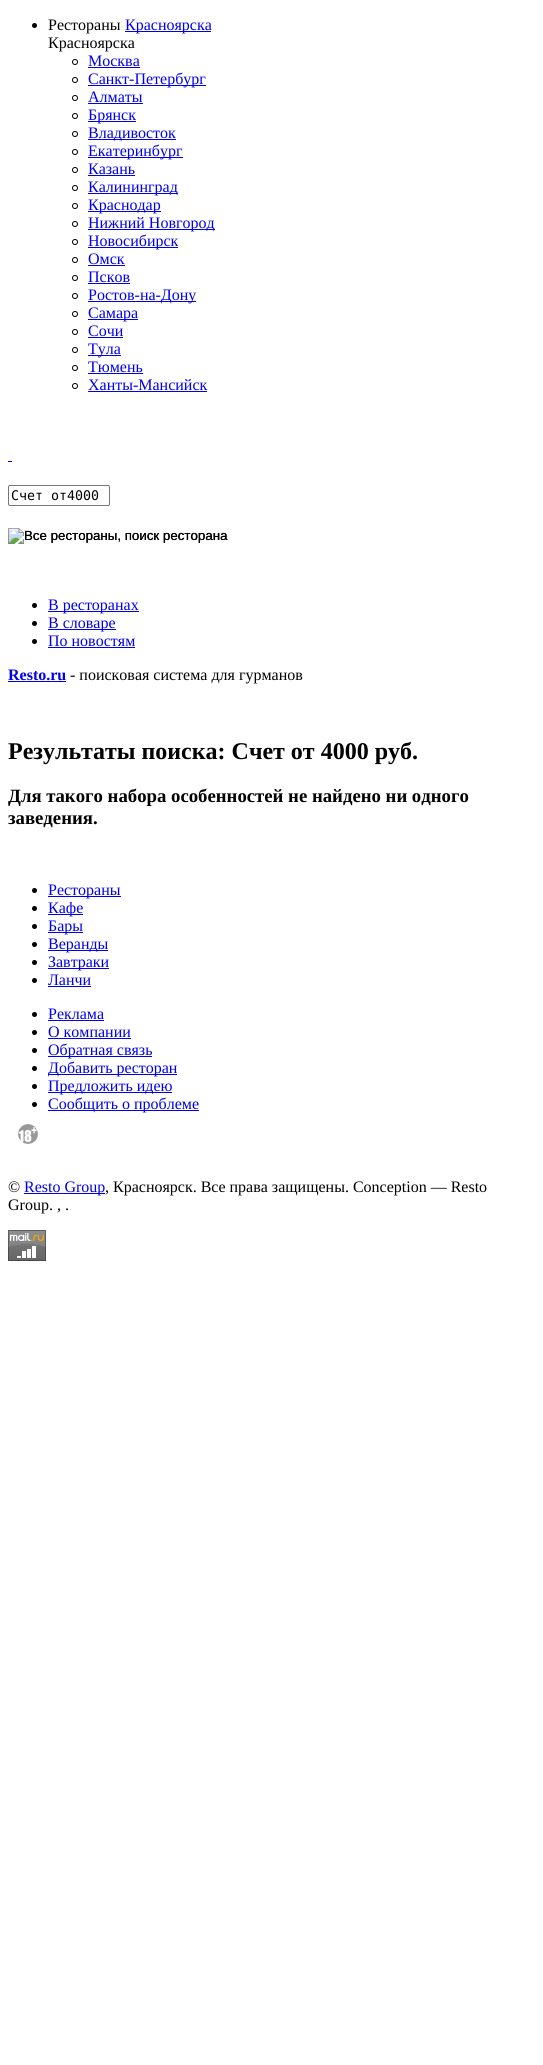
import math
import cairo

surface = cairo.ImageSurface(cairo.FORMAT_RGB24, 543, 2065)
c = cairo.Context(surface)
options = cairo.FontOptions()
options.set_hint_metrics(cairo.HINT_METRICS_OFF)
options.set_hint_style(cairo.HINT_STYLE_NONE)
c.set_font_options(options)
c.set_miter_limit(4)
def C(code):
 c.set_source_rgb(*(v / 255 for v in bytes.fromhex(code[-6:])))
def F(family, size, italic, bold):
 c.select_font_face(family, cairo.FONT_SLANT_ITALIC if italic else cairo.FONT_SLANT_NORMAL, cairo.FONT_WEIGHT_BOLD if bold else cairo.FONT_WEIGHT_NORMAL)
 c.set_font_size(size)
def T(x, y, s):
 c.move_to(x, y)
 c.show_text(s)
def R(x, y, w, h):
 c.rectangle(x, y, w, h)
 c.fill()
def Q(x, y, w, h, r):
 c.new_sub_path()
 for i, (u, v) in enumerate([(x + w - r, y + h - r), (x + r, y + h - r), (x + r, y + r), (x + w - r, y + r)]):
  c.arc(u, v, r, i * math.pi / 2, (i + 1) * math.pi / 2)
 c.close_path()
def I(path, x, y, w, h):
 c.save()
 c.set_source_surface(cairo.ImageSurface.create_from_png(path), x, y)
 c.rectangle(x, y, w, h)
 c.fill()
 c.restore()
C('ffffff')
c.paint()
C('000000')
c.arc(34.5,25.5,2.5,0,2 * math.pi)
c.fill()
F('Liberation Serif',16,0,0)
T(48,30,'Рестораны')
C('0000ee')
R(125,31,86,1)
T(125,30,'Красноярска')
C('000000')
T(48,48,'Красноярска')
c.new_path()
c.arc(75,62,2.5,0,2 * math.pi)
c.set_line_width(1)
c.stroke()
C('0000ee')
T(88,66,'Москва')
R(88,67,52,1)
c.new_path()
c.arc(75,80,2.5,0,2 * math.pi)
C('000000')
c.stroke()
C('0000ee')
R(88,85,118,1)
T(88,84,'Санкт-Петербург')
c.new_path()
c.arc(75,98,2.5,0,2 * math.pi)
C('000000')
c.stroke()
C('0000ee')
T(88,102,'Алматы')
R(88,103,55,1)
c.new_path()
c.arc(75,116,2.5,0,2 * math.pi)
C('000000')
c.stroke()
C('0000ee')
R(88,121,48,1)
T(88,120,'Брянск')
c.new_path()
c.arc(75,134,2.5,0,2 * math.pi)
C('000000')
c.stroke()
C('0000ee')
R(88,139,88,1)
T(88,138,'Владивосток')
c.new_path()
c.arc(75,152,2.5,0,2 * math.pi)
C('000000')
c.stroke()
C('0000ee')
R(88,157,95,1)
T(88,156,'Екатеринбург')
c.new_path()
c.arc(75,170,2.5,0,2 * math.pi)
C('000000')
c.stroke()
C('0000ee')
T(88,174,'Казань')
R(88,175,47,1)
c.new_path()
c.arc(75,188,2.5,0,2 * math.pi)
C('000000')
c.stroke()
C('0000ee')
R(88,193,90,1)
T(88,192,'Калининград')
c.new_path()
c.arc(75,206,2.5,0,2 * math.pi)
C('000000')
c.stroke()
C('0000ee')
R(88,211,73,1)
T(88,210,'Краснодар')
c.new_path()
c.arc(75,224,2.5,0,2 * math.pi)
C('000000')
c.stroke()
C('0000ee')
R(88,229,127,1)
T(88,228,'Нижний Новгород')
c.new_path()
c.arc(75,242,2.5,0,2 * math.pi)
C('000000')
c.stroke()
C('0000ee')
R(88,247,90,1)
T(88,246,'Новосибирск')
c.new_path()
c.arc(75,260,2.5,0,2 * math.pi)
C('000000')
c.stroke()
C('0000ee')
T(88,264,'Омск')
R(88,265,37,1)
c.new_path()
c.arc(75,278,2.5,0,2 * math.pi)
C('000000')
c.stroke()
C('0000ee')
T(88,282,'Псков')
R(88,283,42,1)
c.new_path()
c.arc(75,296,2.5,0,2 * math.pi)
C('000000')
c.stroke()
C('0000ee')
R(88,301,108,1)
T(88,300,'Ростов-на-Дону')
c.new_path()
c.arc(75,314,2.5,0,2 * math.pi)
C('000000')
c.stroke()
C('0000ee')
R(88,319,50,1)
T(88,318,'Самара')
c.new_path()
c.arc(75,332,2.5,0,2 * math.pi)
C('000000')
c.stroke()
C('0000ee')
T(88,336,'Сочи')
R(88,337,35,1)
c.new_path()
c.arc(75,350,2.5,0,2 * math.pi)
C('000000')
c.stroke()
C('0000ee')
R(88,355,33,1)
T(88,354,'Тула')
c.new_path()
c.arc(75,368,2.5,0,2 * math.pi)
C('000000')
c.stroke()
C('0000ee')
T(88,372,'Тюмень')
R(88,373,55,1)
c.new_path()
c.arc(75,386,2.5,0,2 * math.pi)
C('000000')
c.stroke()
C('0000ee')
T(88,390,'Ханты-Мансийск')
R(88,391,119,1)
R(8,461,4,1)
Q(8.5,485.5,101,20,1.5)
C('767676')
c.stroke()
F('DejaVu Sans Mono',13.3,0,0)
C('000000')
T(11,500,'Счет от4000')
I('1.png',8,528,220,16)
F('Liberation Sans',13.3,0,0)
T(24,540,'Все рестораны, поиск ресторана')
c.new_path()
c.arc(34.5,605.5,2.5,0,2 * math.pi)
c.fill()
C('0000ee')
R(48,611,91,1)
F('Liberation Serif',16,0,0)
T(48,610,'В ресторанах')
C('000000')
c.new_path()
c.arc(34.5,623.5,2.5,0,2 * math.pi)
c.fill()
C('0000ee')
R(48,629,68,1)
T(48,628,'В словаре')
C('000000')
c.new_path()
c.arc(34.5,641.5,2.5,0,2 * math.pi)
c.fill()
C('0000ee')
T(48,646,'По новостям')
R(48,647,87,1)
F('Liberation Serif',16,0,1)
T(8,680,'Resto.ru')
R(8,681,58,1)
F('Liberation Serif',16,0,0)
C('000000')
T(70,680,'- поисковая система для гурманов')
F('Liberation Serif',24,0,1)
T(8,759,'Результаты поиска: Счет от 4000 руб.')
F('Liberation Serif',18.75,0,1)
T(8,802,'Для такого набора особенностей не найдено ни одного')
T(8,824,'заведения.')
c.new_path()
c.arc(34.5,890.5,2.5,0,2 * math.pi)
c.fill()
C('0000ee')
R(48,896,73,1)
F('Liberation Serif',16,0,0)
T(48,895,'Рестораны')
C('000000')
c.new_path()
c.arc(34.5,908.5,2.5,0,2 * math.pi)
c.fill()
C('0000ee')
R(48,914,35,1)
T(48,913,'Кафе')
C('000000')
c.new_path()
c.arc(34.5,926.5,2.5,0,2 * math.pi)
c.fill()
C('0000ee')
R(48,932,35,1)
T(48,931,'Бары')
C('000000')
c.new_path()
c.arc(34.5,944.5,2.5,0,2 * math.pi)
c.fill()
C('0000ee')
R(48,950,60,1)
T(48,949,'Веранды')
C('000000')
c.new_path()
c.arc(34.5,962.5,2.5,0,2 * math.pi)
c.fill()
C('0000ee')
R(48,968,61,1)
T(48,967,'Завтраки')
C('000000')
c.new_path()
c.arc(34.5,980.5,2.5,0,2 * math.pi)
c.fill()
C('0000ee')
T(48,985,'Ланчи')
R(48,986,43,1)
C('000000')
c.new_path()
c.arc(34.5,1014.5,2.5,0,2 * math.pi)
c.fill()
C('0000ee')
T(48,1019,'Реклама')
R(48,1020,56,1)
C('000000')
c.new_path()
c.arc(34.5,1032.5,2.5,0,2 * math.pi)
c.fill()
C('0000ee')
T(48,1037,'О компании')
R(48,1038,83,1)
C('000000')
c.new_path()
c.arc(34.5,1050.5,2.5,0,2 * math.pi)
c.fill()
C('0000ee')
R(48,1056,104,1)
T(48,1055,'Обратная связь')
C('000000')
c.new_path()
c.arc(34.5,1068.5,2.5,0,2 * math.pi)
c.fill()
C('0000ee')
R(48,1074,129,1)
T(48,1073,'Добавить ресторан')
C('000000')
c.new_path()
c.arc(34.5,1086.5,2.5,0,2 * math.pi)
c.fill()
C('0000ee')
R(48,1092,124,1)
T(48,1091,'Предложить идею')
C('000000')
c.new_path()
c.arc(34.5,1104.5,2.5,0,2 * math.pi)
c.fill()
C('0000ee')
R(48,1110,151,1)
T(48,1109,'Сообщить о проблеме')
I('2.png',18,1124,20,20)
C('000000')
T(8,1192,'©')
C('0000ee')
R(24,1193,81,1)
T(24,1192,'Resto Group')
C('000000')
T(105,1192,', Красноярск. Все права защищены. Conception — Resto')
T(8,1210,'Group. , .')
I('3.png',8,1230,38,31)
surface.write_to_png('o.png')
